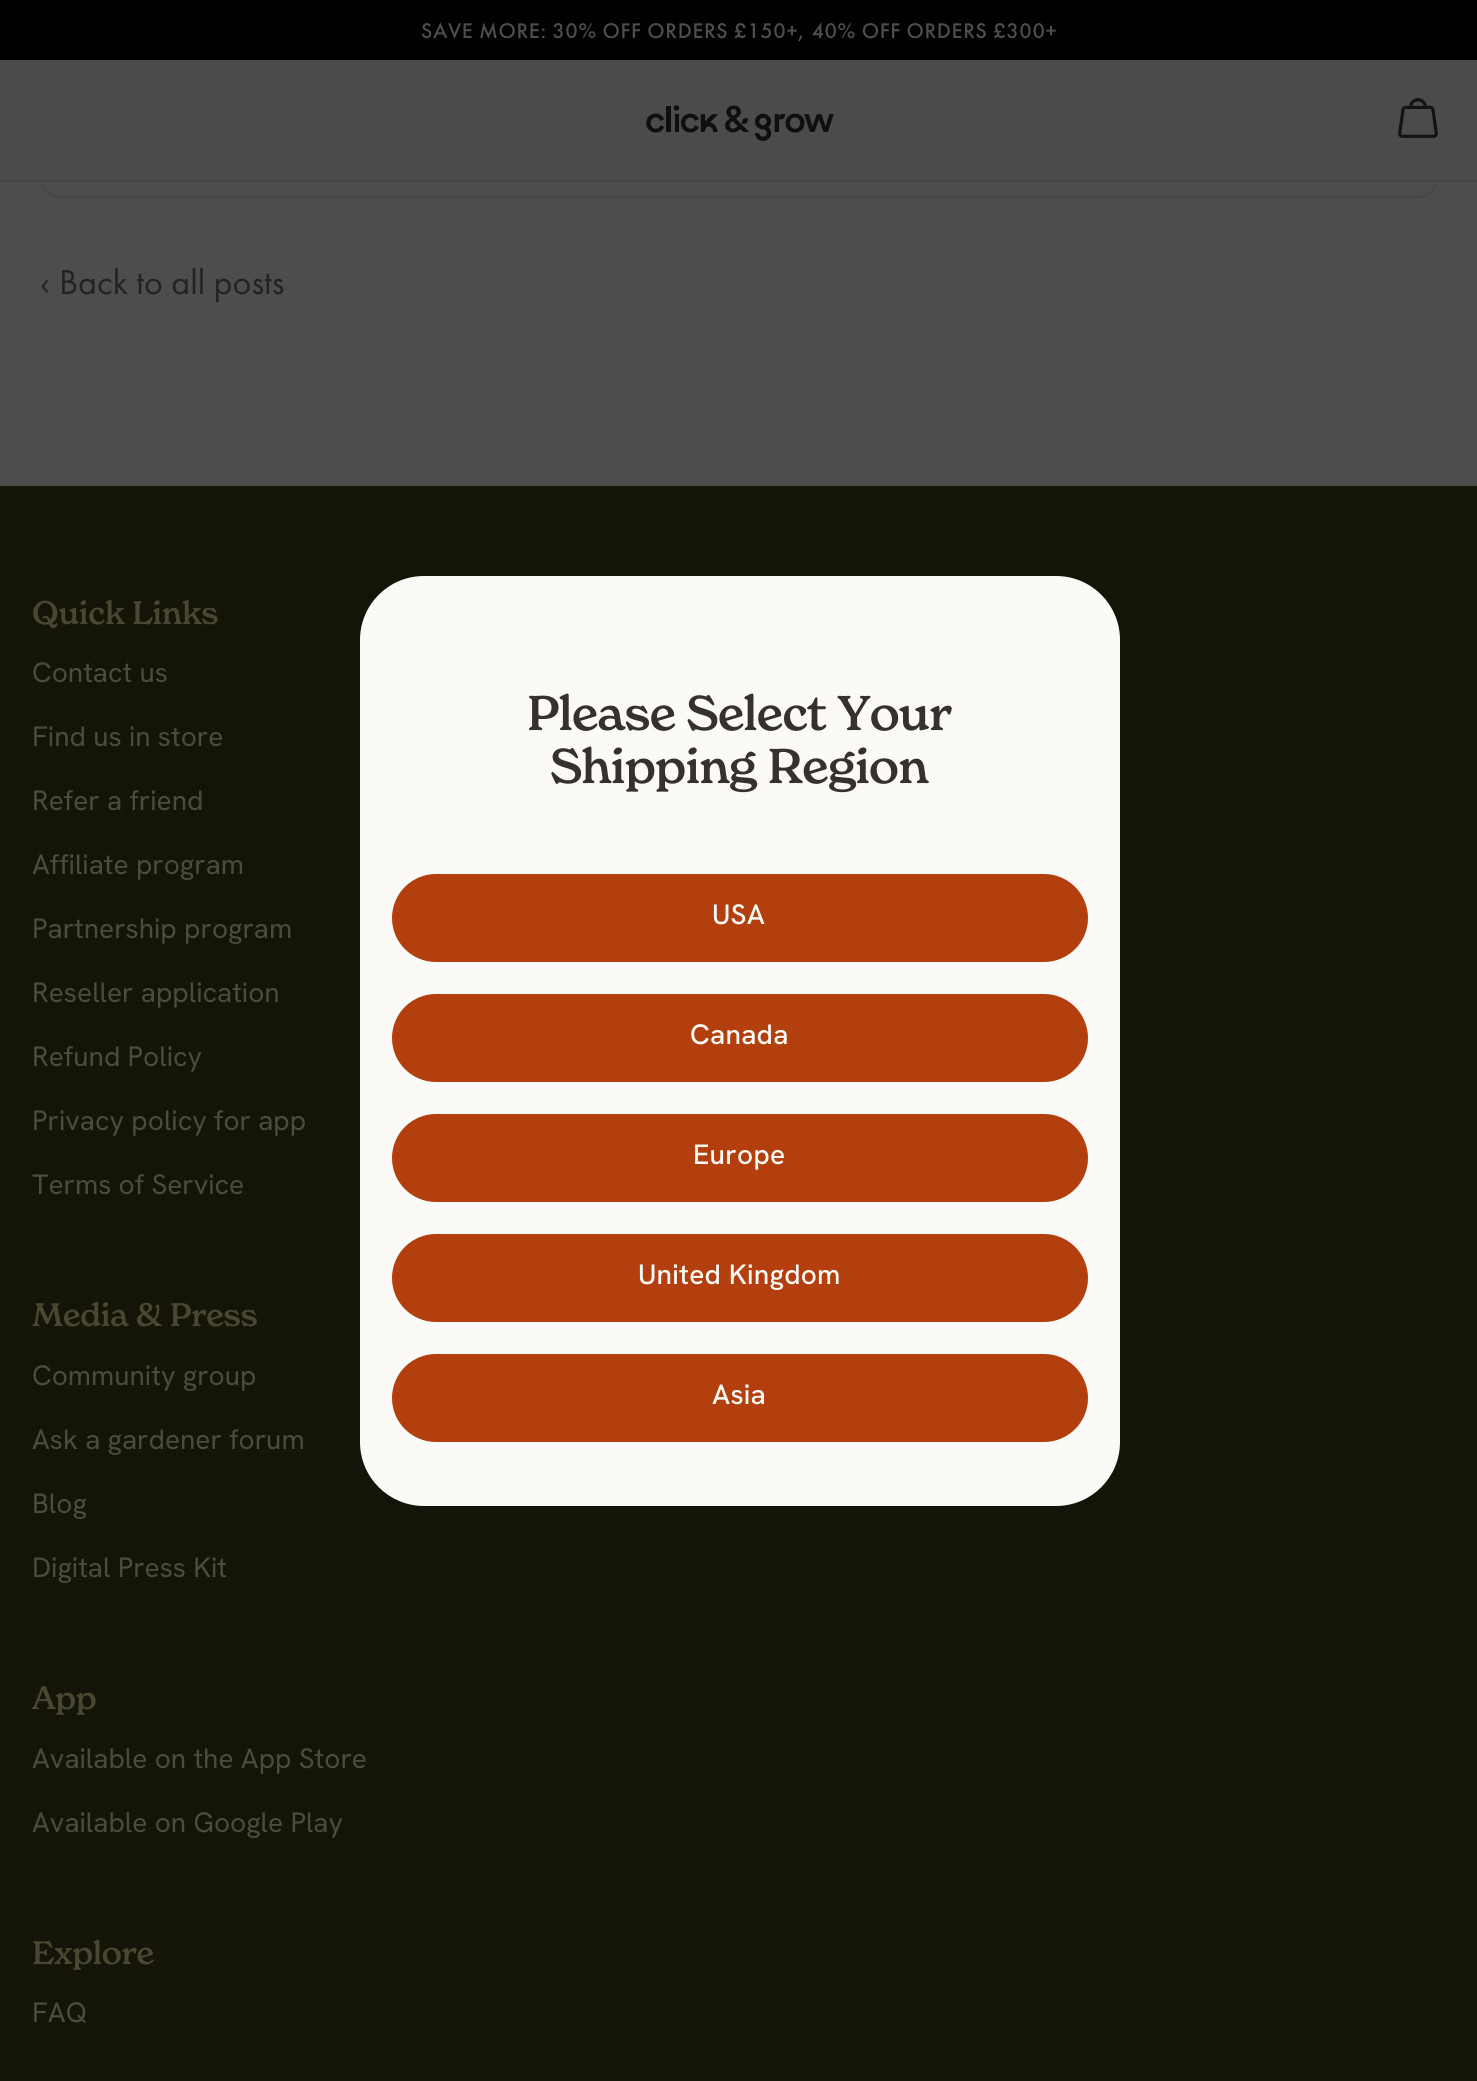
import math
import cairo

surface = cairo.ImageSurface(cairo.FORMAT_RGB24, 1477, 2081)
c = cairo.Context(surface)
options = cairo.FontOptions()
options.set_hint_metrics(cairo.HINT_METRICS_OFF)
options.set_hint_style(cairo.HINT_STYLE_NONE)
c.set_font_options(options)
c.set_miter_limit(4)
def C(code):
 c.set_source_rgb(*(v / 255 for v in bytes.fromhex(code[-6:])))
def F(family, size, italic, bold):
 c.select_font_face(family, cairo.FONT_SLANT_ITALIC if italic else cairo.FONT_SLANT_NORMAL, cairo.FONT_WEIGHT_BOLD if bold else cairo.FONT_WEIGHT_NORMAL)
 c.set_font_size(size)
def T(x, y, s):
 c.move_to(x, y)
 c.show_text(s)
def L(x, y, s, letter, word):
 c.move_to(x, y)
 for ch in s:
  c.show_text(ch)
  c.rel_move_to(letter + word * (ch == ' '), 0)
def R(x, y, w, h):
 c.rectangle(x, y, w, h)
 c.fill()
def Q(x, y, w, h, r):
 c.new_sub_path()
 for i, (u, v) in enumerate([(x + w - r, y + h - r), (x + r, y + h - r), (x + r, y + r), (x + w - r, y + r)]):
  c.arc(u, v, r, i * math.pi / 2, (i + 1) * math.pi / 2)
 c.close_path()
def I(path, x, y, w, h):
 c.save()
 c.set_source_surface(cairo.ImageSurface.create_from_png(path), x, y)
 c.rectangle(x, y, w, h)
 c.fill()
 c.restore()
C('4d4d4d')
c.paint()
Q(41,-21,1396,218,19)
C('474747')
c.stroke()
C('000000')
R(0,0,1477,60)
F('Futura PT Medium',22,0,0)
C('4d4d4d')
L(421,38,'SAVE MORE: 30% OFF ORDERS £150+, 40% OFF ORDERS £300+',.6,0)
C('4c4b4a')
R(0,60,1477,120)
C('474747')
R(0,180,1477,2)
I('1.png',646,105,188,36)
I('2.png',1398,98,40,40)
F('Futura PT',36,0,0)
C('232323')
T(40,294,'‹')
T(59,294,'Back to all posts')
C('141409')
R(0,486,1477,1595)
F('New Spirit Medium',32,0,0)
C('484731')
L(32,624,'Quick Links',-.25,0)
F('Hanken Grotesk',28,0,0)
C('4b4b40')
T(32,682,'Contact us')
T(32,746,'Find us in store')
T(32,810,'Refer a friend')
T(32,874,'Affiliate program')
T(32,938,'Partnership program')
T(32,1002,'Reseller application')
T(32,1066,'Refund Policy')
T(32,1130,'Privacy policy for app')
T(32,1194,'Terms of Service')
F('New Spirit Medium',32,0,0)
C('484731')
L(32,1326,'Media & Press',-.25,0)
F('Hanken Grotesk',28,0,0)
C('4b4b40')
T(32,1385,'Community group')
T(32,1449,'Ask a gardener forum')
T(32,1513,'Blog')
T(32,1577,'Digital Press Kit')
F('New Spirit Medium',32,0,0)
C('484731')
L(32,1709,'App',-.25,0)
F('Hanken Grotesk',28,0,0)
C('4b4b40')
T(32,1768,'Available on the App Store')
T(32,1832,'Available on Google Play')
F('New Spirit Medium',32,0,0)
C('484731')
L(32,1964,'Explore',-.25,0)
F('Hanken Grotesk',28,0,0)
C('4b4b40')
T(32,2022,'FAQ')
C('fcfaf6')
Q(360,576,760,930,64)
c.fill()
F('New Spirit Medium',48,0,0)
C('34312e')
L(527,730,'Please Select Your',-.75,0)
L(550,783,'Shipping Region',-.75,0)
C('b23f0d')
Q(392,874,696,88,44)
c.fill()
F('Hanken Grotesk Medium',28,0,0)
C('fcfaf6')
L(712,924,'USA',.25,0)
C('b23f0d')
Q(392,994,696,88,44)
c.fill()
C('fcfaf6')
L(690,1044,'Canada',.25,0)
C('b23f0d')
Q(392,1114,696,88,44)
c.fill()
C('fcfaf6')
L(693,1164,'Europe',.25,0)
C('b23f0d')
Q(392,1234,696,88,44)
c.fill()
C('fcfaf6')
L(638,1284,'United Kingdom',.25,0)
C('b23f0d')
Q(392,1354,696,88,44)
c.fill()
C('fcfaf6')
L(712,1404,'Asia',.25,0)
surface.write_to_png('o.png')
